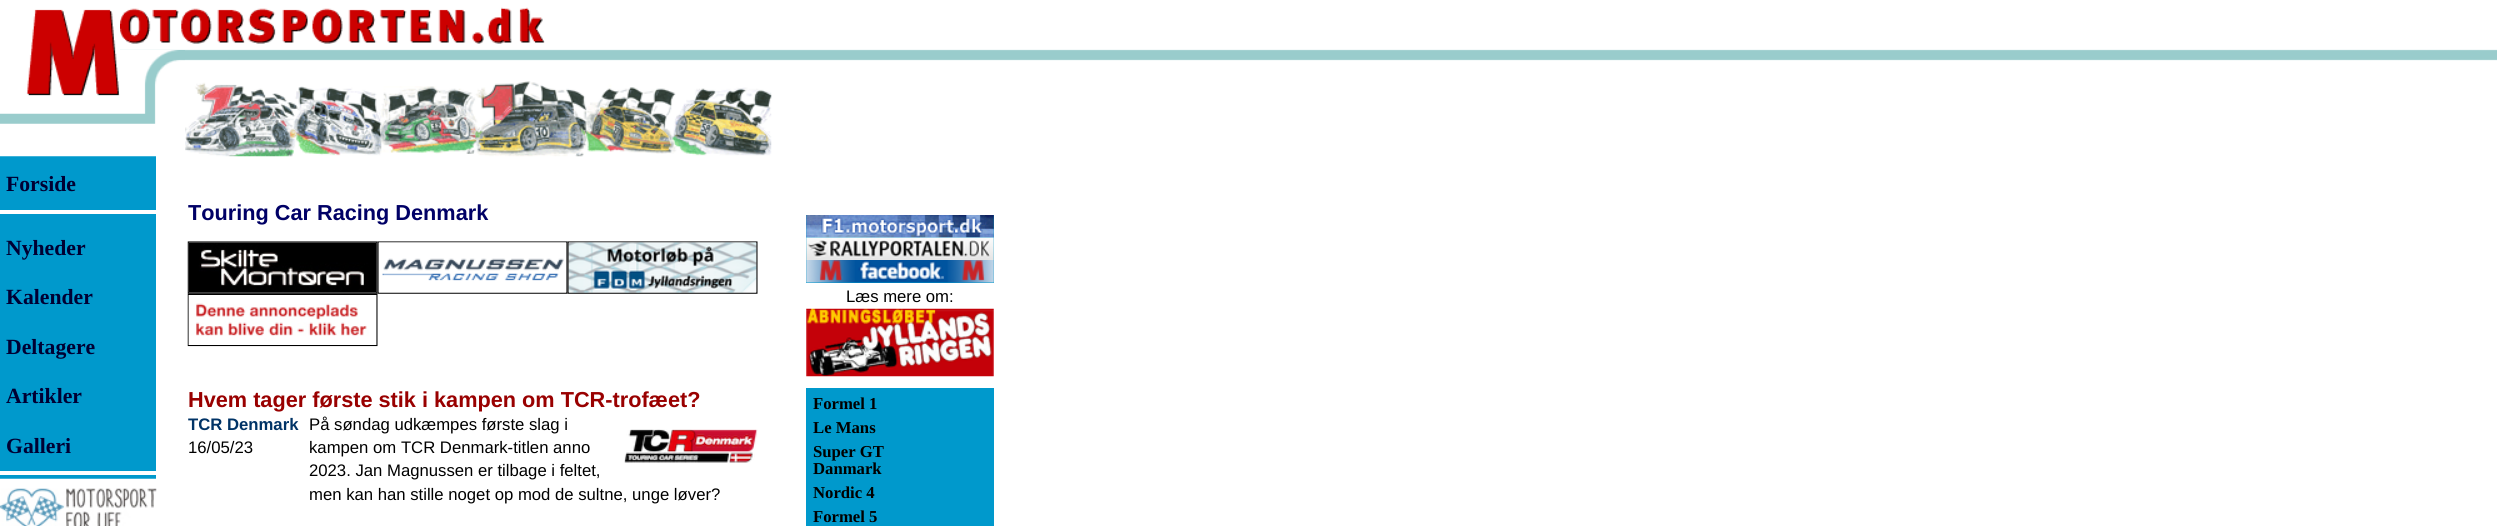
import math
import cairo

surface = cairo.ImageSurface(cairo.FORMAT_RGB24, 2497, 526)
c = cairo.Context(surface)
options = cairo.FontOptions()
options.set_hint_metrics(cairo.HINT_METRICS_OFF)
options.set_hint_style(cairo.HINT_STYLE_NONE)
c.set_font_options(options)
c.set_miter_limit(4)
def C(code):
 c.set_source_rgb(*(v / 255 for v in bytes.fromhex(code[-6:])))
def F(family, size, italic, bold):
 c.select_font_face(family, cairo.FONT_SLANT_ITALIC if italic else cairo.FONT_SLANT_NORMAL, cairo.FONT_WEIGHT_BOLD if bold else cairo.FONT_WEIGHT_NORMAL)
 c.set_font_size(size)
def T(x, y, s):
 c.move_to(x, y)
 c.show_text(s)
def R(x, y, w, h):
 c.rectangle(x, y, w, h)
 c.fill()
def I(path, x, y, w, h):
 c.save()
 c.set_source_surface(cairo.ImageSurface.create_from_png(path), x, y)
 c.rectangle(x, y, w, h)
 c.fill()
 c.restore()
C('ffffff')
c.paint()
I('1.png',120,49,2377,12)
I('2.png',0,9,120,87)
I('3.png',120,7,425,37)
C('0099cc')
R(0,156,156,323)
I('4.png',0,113,120,44)
I('5.png',120,50,65,107)
I('6.png',185,81,587,76)
F('Liberation Serif',21.7,0,1)
C('000033')
T(6,191,'Forside')
C('ffffff')
R(0,210,156,4)
C('000033')
T(6,255,'Nyheder')
T(6,304,'Kalender')
T(6,354,'Deltagere')
T(6,403,'Artikler')
T(6,453,'Galleri')
C('ffffff')
R(0,471,156,4)
I('7.png',0,478,157,48)
F('Liberation Sans',21.7,0,1)
C('000066')
T(188,220,'Touring Car Racing Denmark')
I('8.png',187,241,571,106)
C('990000')
T(188,407,'Hvem tager første stik i kampen om TCR-trofæet?')
F('Liberation Sans',16.7,0,1)
C('003366')
T(188,430,'TCR Denmark')
F('Liberation Sans',16.7,0,0)
C('000000')
T(188,453,'16/05/23')
T(309,430,'På søndag udkæmpes første slag i')
T(309,453,'kampen om TCR Denmark-titlen anno')
I('9.png',624,429,134,34)
T(309,476,'2023. Jan Magnussen er tilbage i feltet,')
T(309,500,'men kan han stille noget op mod de sultne, unge løver?')
C('0099cc')
R(806,215,188,311)
I('10.png',806,215,188,23)
I('11.png',806,237,188,23)
I('12.png',806,260,188,23)
C('ffffff')
R(806,283,188,101)
C('000000')
T(846,302,'Læs mere om:')
I('13.png',806,308,188,69)
C('ffffff')
R(806,384,188,4)
F('Liberation Serif',16.7,0,1)
C('000000')
T(813,409,'Formel 1')
T(813,433,'Le Mans')
T(813,457,'Super GT')
T(813,474,'Danmark')
T(813,498,'Nordic 4')
T(813,522,'Formel 5')
surface.write_to_png('o.png')
